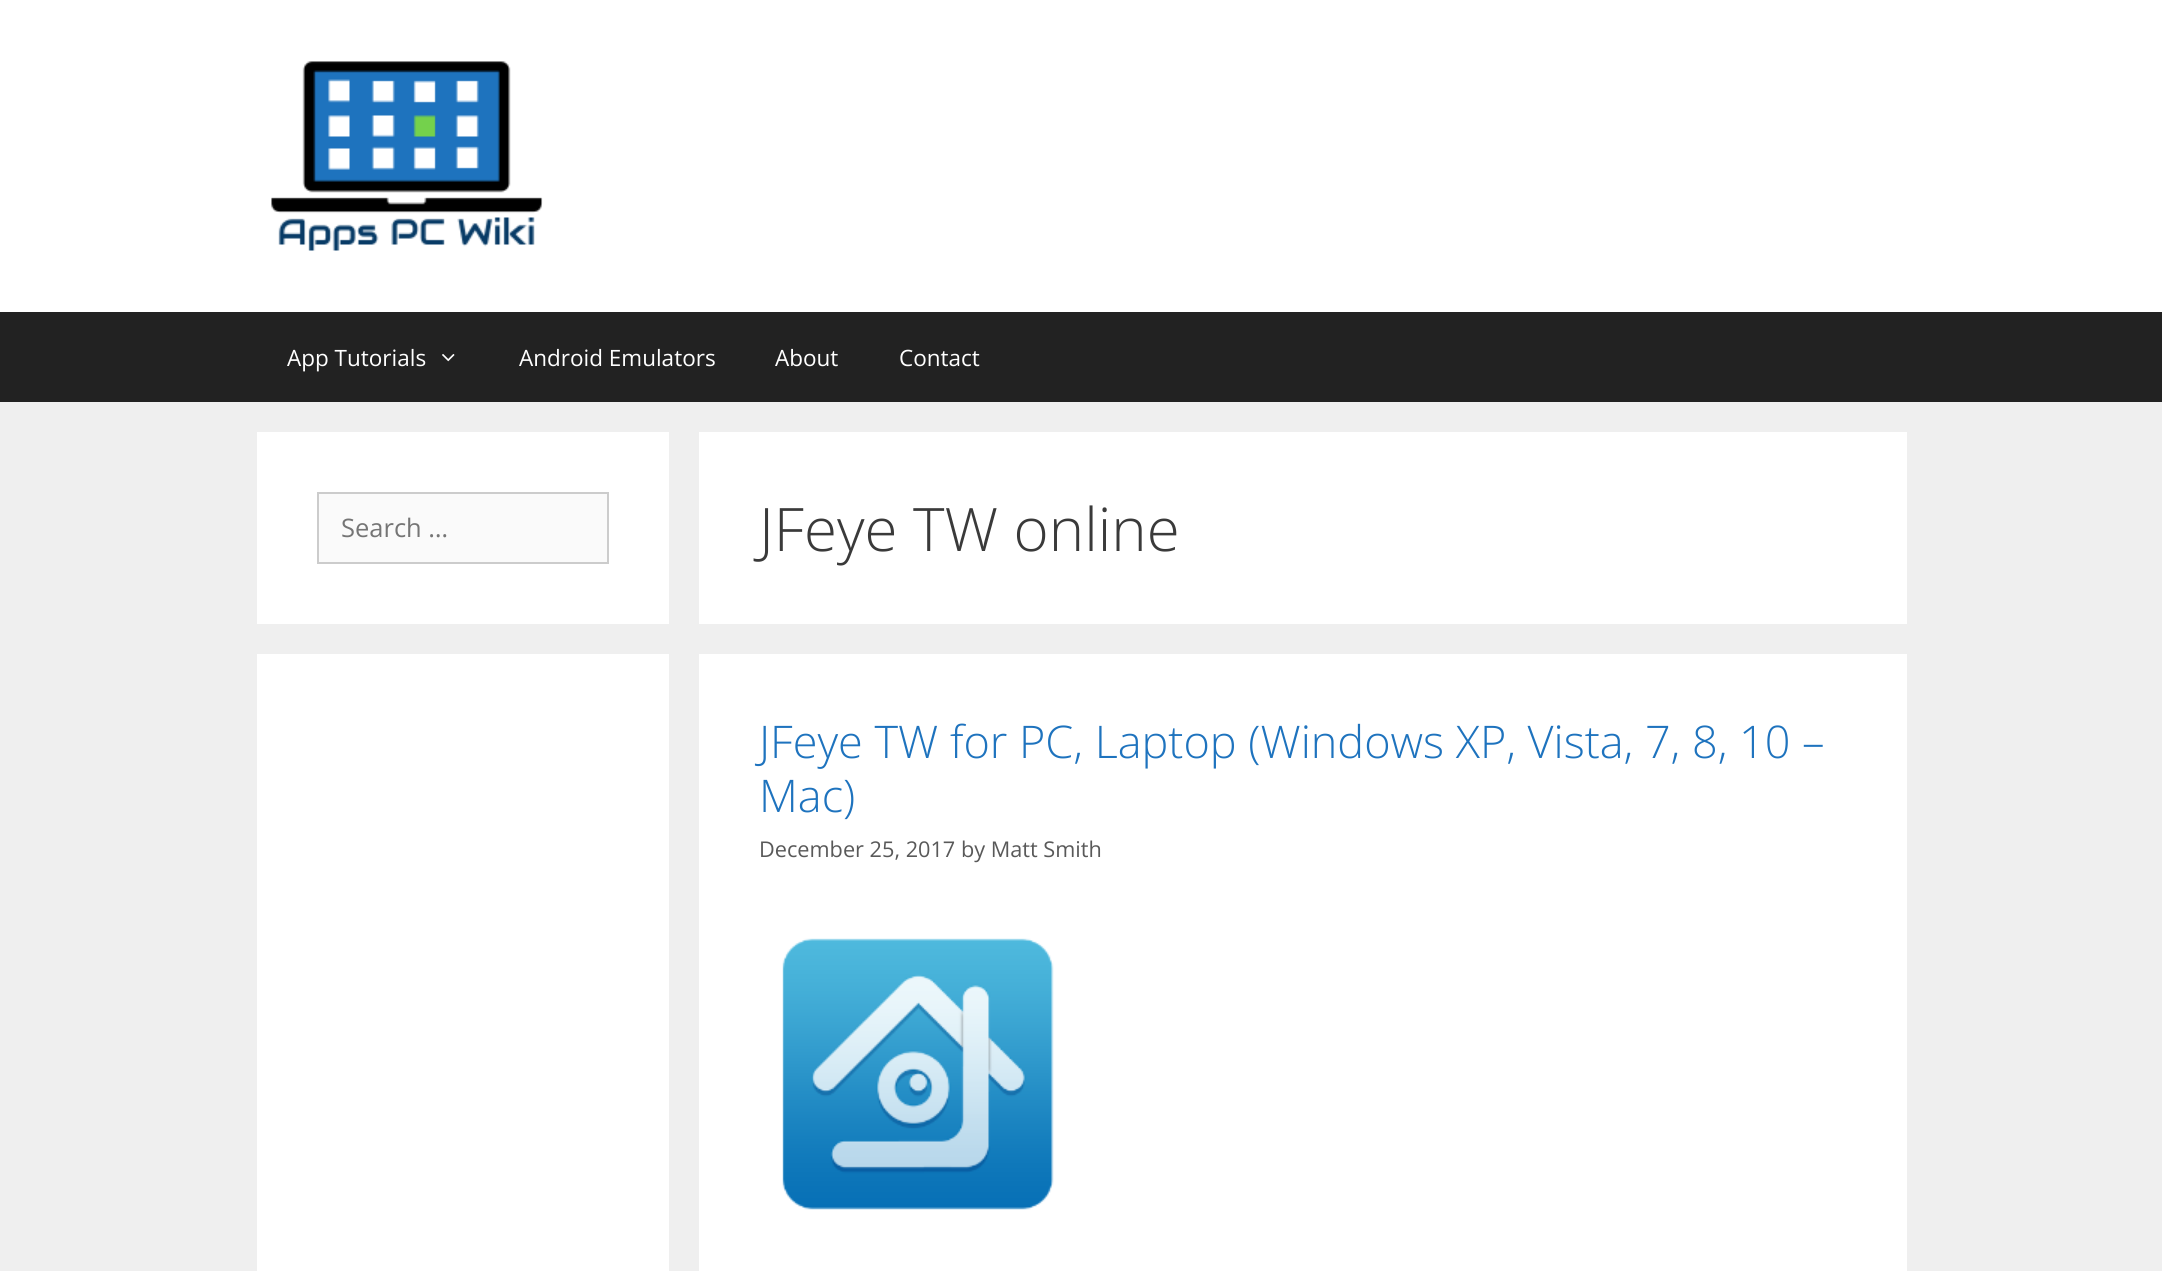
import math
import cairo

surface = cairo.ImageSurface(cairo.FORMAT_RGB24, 2162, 1271)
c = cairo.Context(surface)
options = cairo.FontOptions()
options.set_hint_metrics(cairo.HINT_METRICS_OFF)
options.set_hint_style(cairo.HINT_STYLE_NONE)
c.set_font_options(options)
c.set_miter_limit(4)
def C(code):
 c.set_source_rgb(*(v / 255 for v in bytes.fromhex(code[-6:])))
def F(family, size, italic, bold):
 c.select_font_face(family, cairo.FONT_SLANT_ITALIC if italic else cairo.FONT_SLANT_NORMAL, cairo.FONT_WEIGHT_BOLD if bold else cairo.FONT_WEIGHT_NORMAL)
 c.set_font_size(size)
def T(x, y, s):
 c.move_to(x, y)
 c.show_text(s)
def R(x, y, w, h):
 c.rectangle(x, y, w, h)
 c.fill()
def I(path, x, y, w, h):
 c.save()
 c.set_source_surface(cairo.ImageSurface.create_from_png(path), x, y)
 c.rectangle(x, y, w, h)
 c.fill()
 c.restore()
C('efefef')
c.paint()
C('ffffff')
R(0,0,2162,312)
I('1.png',271,61,272,190)
C('222222')
R(0,312,2162,90)
F('Open Sans',22.5,0,0)
C('ffffff')
T(287,366,'App Tutorials')
I('2.png',442,354,13,8)
T(519,366,'Android Emulators')
T(775,366,'About')
T(899,366,'Contact')
R(257,432,412,192)
C('fafafa')
c.rectangle(318,493,290,70)
c.fill_preserve()
C('cccccc')
c.stroke()
F('Open Sans',25.5,0,0)
C('757575')
T(341,537,'Search …')
C('ffffff')
R(257,654,412,617)
R(699,432,1208,192)
F('Open Sans Light',60,0,0)
C('3a3a3a')
T(759,551,'JFeye TW online')
C('ffffff')
R(699,654,1208,617)
F('Open Sans Light',45,0,0)
C('1e73be')
T(759,758,'JFeye TW for PC, Laptop (Windows XP, Vista, 7, 8, 10 –')
T(759,812,'Mac)')
F('Open Sans',21.7,0,0)
C('595959')
T(759,857,'December 25, 2017 by Matt Smith')
I('3.png',782,938,272,272)
surface.write_to_png('o.png')
